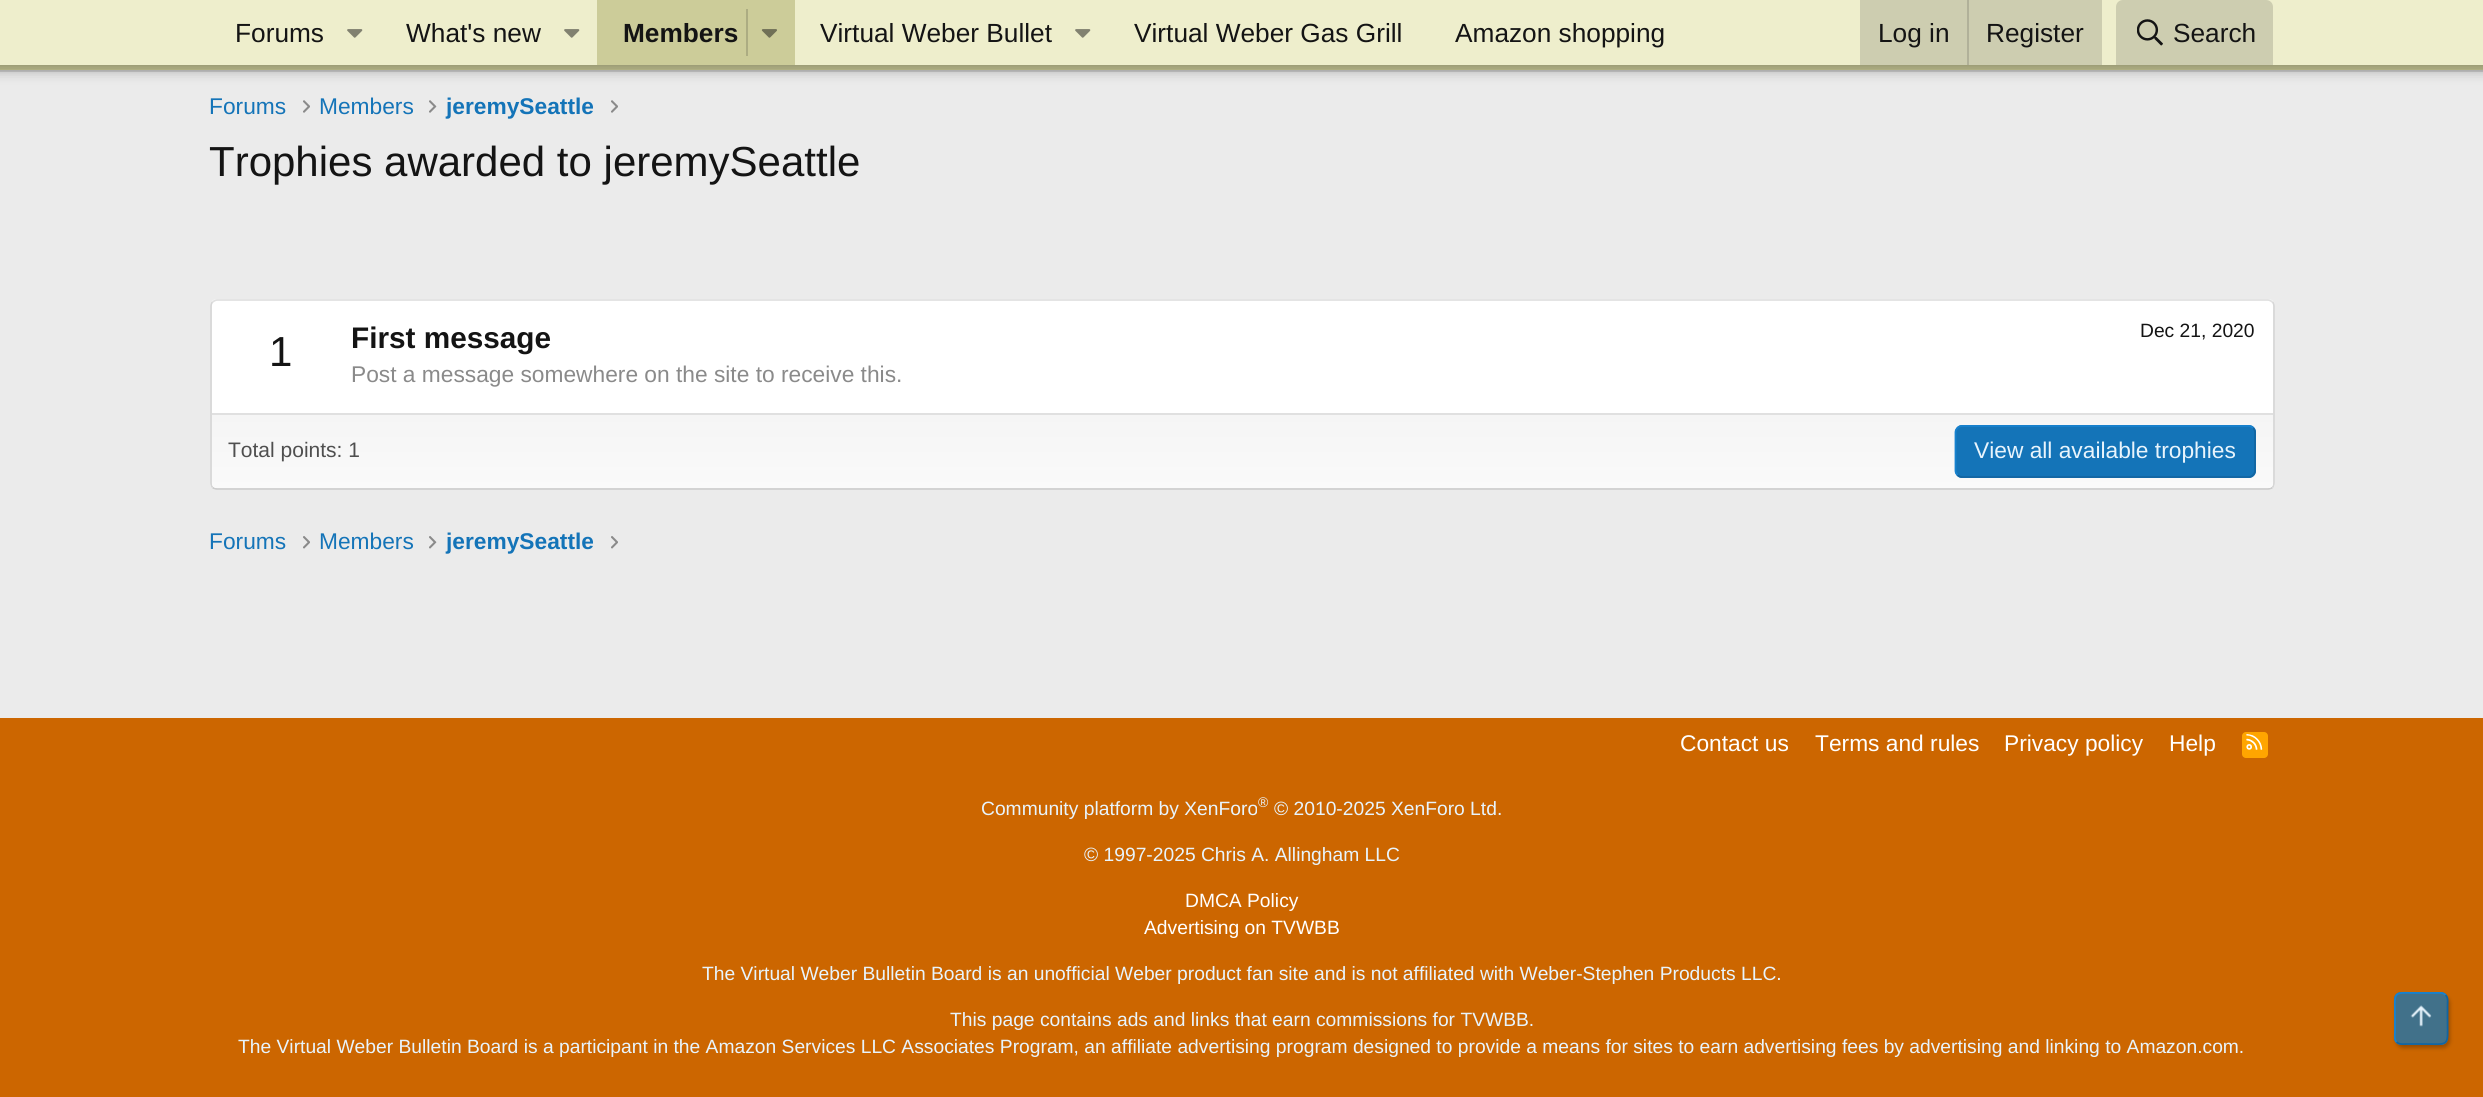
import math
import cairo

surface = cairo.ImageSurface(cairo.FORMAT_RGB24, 2483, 1097)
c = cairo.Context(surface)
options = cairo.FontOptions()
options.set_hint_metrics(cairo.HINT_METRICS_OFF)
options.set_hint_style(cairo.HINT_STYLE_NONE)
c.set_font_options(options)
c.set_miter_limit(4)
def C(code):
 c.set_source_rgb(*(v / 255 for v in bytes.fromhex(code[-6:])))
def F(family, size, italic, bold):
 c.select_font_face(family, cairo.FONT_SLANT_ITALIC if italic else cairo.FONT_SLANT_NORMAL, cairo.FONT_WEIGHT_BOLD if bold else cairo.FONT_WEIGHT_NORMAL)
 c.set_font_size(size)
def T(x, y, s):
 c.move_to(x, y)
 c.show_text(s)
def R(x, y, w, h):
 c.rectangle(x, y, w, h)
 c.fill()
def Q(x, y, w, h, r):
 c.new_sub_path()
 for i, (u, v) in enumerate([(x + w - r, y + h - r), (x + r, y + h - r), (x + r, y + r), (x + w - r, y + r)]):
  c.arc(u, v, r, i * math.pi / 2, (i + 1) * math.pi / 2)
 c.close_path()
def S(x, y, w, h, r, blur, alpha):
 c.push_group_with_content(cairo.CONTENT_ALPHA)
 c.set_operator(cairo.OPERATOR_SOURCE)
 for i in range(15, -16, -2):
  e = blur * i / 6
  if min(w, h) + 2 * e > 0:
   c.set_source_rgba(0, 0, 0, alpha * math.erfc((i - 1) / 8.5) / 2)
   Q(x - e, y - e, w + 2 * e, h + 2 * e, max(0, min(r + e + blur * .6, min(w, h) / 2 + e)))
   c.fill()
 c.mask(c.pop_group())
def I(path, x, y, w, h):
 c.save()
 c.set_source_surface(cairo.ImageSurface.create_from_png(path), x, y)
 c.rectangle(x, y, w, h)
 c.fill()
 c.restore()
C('ebebeb')
c.paint()
C('cccc99')
R(0,65,2483,5)
C('cccccc')
R(0,70,2483,2)
C('000000')
S(-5,-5,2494,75,0,7,.3)
C('eeeecc')
R(0,0,2483,65)
F('Liberation Sans',26.25,0,0)
C('141414')
T(235,42,'Forums')
I('1.png',347,29,16,9)
T(406,42,'What\'s new')
I('1.png',564,29,16,9)
C('cccc99')
R(597,0,198,65)
F('Liberation Sans',26.25,0,1)
C('141414')
T(623,42,'Members')
C('acac82')
R(746,9,2,47)
I('2.png',761,29,16,9)
F('Liberation Sans',26.25,0,0)
C('141414')
T(820,42,'Virtual Weber Bullet')
I('1.png',1075,29,16,9)
T(1134,42,'Virtual Weber Gas Grill')
T(1455,42,'Amazon shopping')
C('cdcdb0')
R(1860,0,242,65)
C('141414')
T(1878,42,'Log in')
C('b1b199')
R(1967,0,2,65)
C('141414')
T(1986,42,'Register')
C('cdcdb0')
c.new_path()
c.move_to(2123,0)
c.line_to(2266,0)
c.curve_to(2270,0,2273,3,2273,7)
c.line_to(2273,65)
c.line_to(2116,65)
c.line_to(2116,7)
c.curve_to(2116,3,2119,0,2123,0)
c.close_path()
c.fill()
I('3.png',2137,19,26,27)
C('141414')
T(2173,42,'Search')
F('Liberation Sans',22.75,0,0)
C('1474b8')
T(209,114,'Forums')
I('4.png',303,100,7,13)
T(319,114,'Members')
I('5.png',429,100,8,13)
F('Liberation Sans',22.75,0,1)
T(446,114,'jeremySeattle')
I('4.png',611,100,7,13)
F('Liberation Sans',42,0,0)
C('141414')
T(209,176,'Trophies awarded to jeremySeattle')
C('ffffff')
Q(210,299,2065,191,7)
c.fill()
c.new_path()
c.move_to(212.5,302)
c.curve_to(214,301,215.5,300,217,300)
c.line_to(2268,300)
c.curve_to(2269.5,300,2271,301,2272.5,302)
C('e0e0e0')
c.set_line_width(1.8)
c.stroke()
c.new_path()
c.move_to(2272.5,302)
c.curve_to(2273.5,303,2274,304.5,2274,306)
c.line_to(2274,483)
c.curve_to(2274,484.5,2273.5,486,2272.5,487.5)
C('d6d6d6')
c.stroke()
c.new_path()
c.move_to(2272.5,487.5)
c.curve_to(2271,488.5,2269.5,489,2268,489)
c.line_to(217,489)
c.curve_to(215.5,489,214,488.5,212.5,487.5)
C('cccccc')
c.stroke()
c.new_path()
c.move_to(212.5,487.5)
c.curve_to(211.5,486,211,484.5,211,483)
c.line_to(211,306)
c.curve_to(211,304.5,211.5,303,212.5,302)
C('d6d6d6')
c.stroke()
C('141414')
T(269,366,'1')
F('Liberation Sans',29.75,0,1)
T(351,348,'First message')
F('Liberation Sans',19.25,0,0)
T(2140,337,'Dec 21, 2020')
F('Liberation Sans',22.75,0,0)
C('8a8a8a')
T(351,382,'Post a message somewhere on the site to receive this.')
gradient = cairo.LinearGradient(1243,415,1243,488)
gradient.add_color_stop_rgba(0,0.961,0.961,0.961,1)
gradient.add_color_stop_rgba(1,0.98,0.98,0.98,1)
c.set_source(gradient)
c.new_path()
c.move_to(212,415)
c.line_to(2273,415)
c.line_to(2273,483)
c.curve_to(2273,486,2271,488,2268,488)
c.line_to(217,488)
c.curve_to(214,488,212,486,212,483)
c.close_path()
c.fill()
C('e0e0e0')
R(212,413,2061,2)
F('Liberation Sans',21,0,0)
C('4f4f4f')
T(228,457,'Total points: 1')
C('1474b8')
Q(1955,425,301,53,7)
c.fill()
c.new_path()
c.move_to(2253,428)
c.curve_to(2254,429,2255,430.5,2255,432)
c.line_to(2255,471)
c.curve_to(2255,472.5,2254,474,2253,475)
c.curve_to(2252,476,2250.5,477,2249,477)
c.line_to(1962,477)
c.curve_to(1960,477,1958.5,476,1957.5,475)
C('1265a1')
c.stroke()
c.new_path()
c.move_to(1957.5,475)
c.curve_to(1956.5,474,1955.5,472.5,1955.5,471)
c.line_to(1955.5,432)
c.curve_to(1955.5,430.5,1956.5,429,1957.5,428)
c.curve_to(1958.5,427,1960,426,1962,426)
c.line_to(2249,426)
c.curve_to(2250.5,426,2252,427,2253,428)
C('1782cf')
c.stroke()
F('Liberation Sans',22.75,0,0)
C('e8f4fc')
T(1974,458,'View all available trophies')
C('1474b8')
T(209,549,'Forums')
I('6.png',303,536,7,13)
T(319,549,'Members')
I('7.png',429,536,8,13)
F('Liberation Sans',22.75,0,1)
T(446,549,'jeremySeattle')
I('6.png',611,536,7,13)
C('cc6600')
R(0,718,2483,379)
F('Liberation Sans',22.75,0,0)
C('ffffff')
T(1680,751,'Contact us')
T(1815,751,'Terms and rules')
T(2004,751,'Privacy policy')
T(2169,751,'Help')
C('ffa500')
Q(2242,732,26,26,4)
c.fill()
I('8.png',2246,734,17,16)
F('Liberation Sans',19.25,0,0)
C('e8f4fc')
T(981,815,'Community platform by XenForo')
F('Liberation Sans',14,0,0)
T(1258,807,'®')
F('Liberation Sans',19.25,0,0)
T(1274,815,'© 2010-2025 XenForo Ltd.')
T(1084,861,'© 1997-2025 Chris A. Allingham LLC')
C('ffffff')
T(1185,907,'DMCA Policy')
T(1144,934,'Advertising on TVWBB')
C('e8f4fc')
T(702,980,'The Virtual Weber Bulletin Board is an unofficial Weber product fan site and is not affiliated with Weber-Stephen Products LLC.')
T(950,1026,'This page contains ads and links that earn commissions for TVWBB.')
T(238,1053,'The Virtual Weber Bulletin Board is a participant in the Amazon Services LLC Associates Program, an affiliate advertising program designed to provide a means for sites to earn advertising fees by advertising and linking to Amazon.com.')
c.save()
c.set_fill_rule(cairo.FILL_RULE_EVEN_ODD)
c.new_path()
c.move_to(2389,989)
c.line_to(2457,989)
c.line_to(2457,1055)
c.line_to(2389,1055)
c.close_path()
c.move_to(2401,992)
c.line_to(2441,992)
c.curve_to(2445,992,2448,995,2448,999)
c.line_to(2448,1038)
c.curve_to(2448,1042,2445,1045,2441,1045)
c.line_to(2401,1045)
c.curve_to(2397,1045,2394,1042,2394,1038)
c.line_to(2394,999)
c.curve_to(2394,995,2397,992,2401,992)
c.close_path()
c.clip()
C('000000')
S(2396,996,54,52,7,2,.25)
c.restore()
c.set_source_rgba(0.078,0.455,0.722,0.75)
Q(2394,992,54,53,7)
c.fill()
c.new_path()
c.move_to(2445.5,995)
c.curve_to(2448.5,997.5,2447.5,1002.5,2447.5,1005.5)
c.line_to(2447.5,1018.5)
c.curve_to(2447.5,1048,2451,1044,2421,1044)
c.line_to(2407.5,1044)
c.curve_to(2404.5,1044,2399.5,1045,2396.5,1042)
C('1265a1')
c.stroke()
c.new_path()
c.move_to(2396.5,1042)
c.curve_to(2394,1039.5,2395,1034.5,2395,1031.5)
c.line_to(2395,1018.5)
c.curve_to(2395,989,2391,993,2421,993)
c.line_to(2434.5,993)
c.curve_to(2438,993,2443,992,2445.5,995)
C('1782cf')
c.stroke()
I('9.png',2410,1005,22,22)
surface.write_to_png('o.png')
